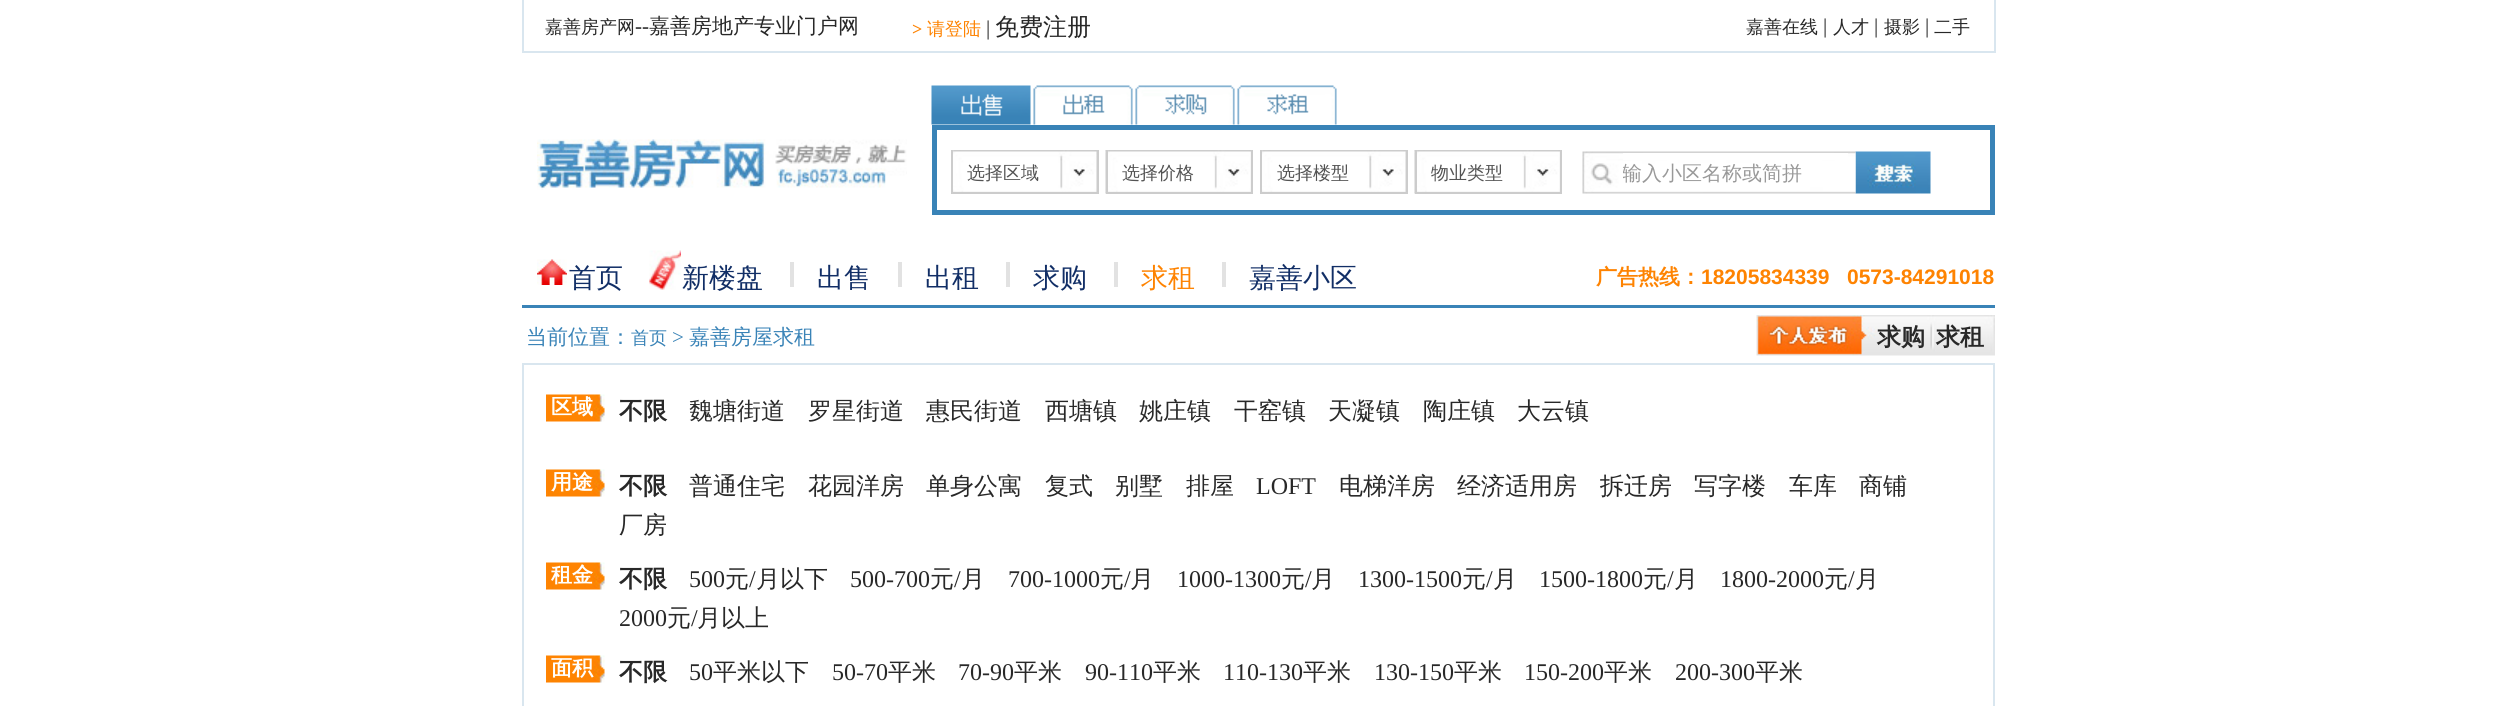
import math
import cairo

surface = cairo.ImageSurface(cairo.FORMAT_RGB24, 2515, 706)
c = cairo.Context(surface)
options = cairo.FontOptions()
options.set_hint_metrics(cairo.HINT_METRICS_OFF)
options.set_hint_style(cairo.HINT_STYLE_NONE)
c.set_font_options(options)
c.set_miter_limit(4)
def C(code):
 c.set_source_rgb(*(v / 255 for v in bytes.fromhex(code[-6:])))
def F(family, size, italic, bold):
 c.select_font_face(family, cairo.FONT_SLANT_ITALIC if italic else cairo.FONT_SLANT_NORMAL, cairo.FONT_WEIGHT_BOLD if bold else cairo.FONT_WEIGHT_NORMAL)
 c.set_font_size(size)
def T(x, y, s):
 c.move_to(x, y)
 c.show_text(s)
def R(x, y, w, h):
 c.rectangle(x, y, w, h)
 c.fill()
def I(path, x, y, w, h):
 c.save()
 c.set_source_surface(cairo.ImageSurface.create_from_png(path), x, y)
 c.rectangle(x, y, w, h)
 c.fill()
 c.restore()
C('ffffff')
c.paint()
C('d9e6ef')
R(1994,0,2,53)
R(522,51,1473,2)
R(522,0,2,53)
F('WenQuanYi Zen Hei Medium',18,0,0)
C('282828')
T(545,33,'嘉善房产网')
F('Liberation Serif',21,0,0)
T(635,33,'--')
F('WenQuanYi Zen Hei Medium',21,0,0)
T(649,33,'嘉善房地产专业门户网')
F('Liberation Serif',18,0,1)
C('fe8301')
T(912,35,'>')
F('WenQuanYi Zen Hei Medium',18,0,0)
T(927,35,'请登陆')
F('Liberation Serif',21,0,0)
C('282828')
T(986,35,'|')
F('WenQuanYi Zen Hei Medium',24,0,0)
T(995,35,'免费注册')
F('WenQuanYi Zen Hei Medium',18,0,0)
T(1746,33,'嘉善在线')
F('Liberation Serif',21,0,0)
T(1823,33,'|')
F('WenQuanYi Zen Hei Medium',18,0,0)
T(1833,33,'人才')
F('Liberation Serif',21,0,0)
T(1874,33,'|')
F('WenQuanYi Zen Hei Medium',18,0,0)
T(1884,33,'摄影')
F('Liberation Serif',21,0,0)
T(1925,33,'|')
F('WenQuanYi Zen Hei Medium',18,0,0)
T(1934,33,'二手')
I('1.png',537,139,370,51)
I('2.png',931,85,100,40)
I('3.png',1033,85,100,40)
I('4.png',1135,85,100,40)
I('5.png',1237,85,100,40)
c.rectangle(934.5,127.5,1058,85)
C('3983b7')
c.set_line_width(5)
c.stroke()
I('6.png',953,150,144,42)
C('cccccc')
R(1097,150,2,44)
R(951,192,147,2)
R(951,150,2,44)
C('535353')
T(967,179,'选择区域')
I('7.png',1105,150,146,44)
C('cccccc')
R(1251,150,2,44)
R(1106,192,147,2)
R(1106,150,2,44)
C('535353')
T(1122,179,'选择价格')
I('8.png',1262,150,144,42)
C('cccccc')
R(1406,150,2,44)
R(1260,192,147,2)
R(1260,150,2,44)
C('535353')
T(1277,179,'选择楼型')
I('9.png',1414,150,146,44)
C('cccccc')
R(1560,150,2,44)
R(1415,192,147,2)
R(1415,150,2,44)
C('535353')
T(1431,179,'物业类型')
I('11.png',1855,151,76,43)
I('10.png',1582,151,274,43)
C('ffffff')
R(1623,153,225,7)
c.save()
c.rectangle(1623,161,225,25)
c.clip()
F('WenQuanYi Zen Hei Medium',20,0,0)
C('999999')
T(1622,180,'输入小区名称或简拼')
c.restore()
C('3983b7')
R(522,305,1473,3)
I('12.png',537,259,30,26)
F('WenQuanYi Zen Hei Medium',27,0,0)
C('112e66')
T(569,287,'首页')
I('13.png',649,250,32,40)
T(682,287,'新楼盘')
C('e2e2e2')
R(790,262,4,25)
C('112e66')
T(817,287,'出售')
C('e2e2e2')
R(898,262,4,25)
C('112e66')
T(925,287,'出租')
C('e2e2e2')
R(1006,262,4,25)
C('112e66')
T(1033,287,'求购')
C('e2e2e2')
R(1114,262,4,25)
C('fe8301')
T(1141,287,'求租')
C('e2e2e2')
R(1222,262,4,25)
C('112e66')
T(1249,287,'嘉善小区')
F('WenQuanYi Zen Hei',21,0,1)
C('fe8301')
T(1596,284,'广告热线：')
F('Liberation Sans',21,0,1)
T(1701,284,'18205834339   0573-84291018')
F('WenQuanYi Zen Hei Medium',21,0,0)
C('3983b7')
T(526,344,'当前位置：')
F('WenQuanYi Zen Hei Medium',18,0,0)
T(631,344,'首页')
F('Liberation Serif',21,0,0)
T(672,344,'>')
F('WenQuanYi Zen Hei Medium',21,0,0)
T(689,344,'嘉善房屋求租')
I('14.png',1756,315,239,41)
F('WenQuanYi Zen Hei',24,0,1)
C('282828')
T(1877,345,'求购')
T(1936,345,'求租')
c.rectangle(523,364,1471,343)
C('d9e6ef')
c.set_line_width(2)
c.stroke()
I('15.png',546,394,59,28)
F('WenQuanYi Zen Hei',21,0,1)
C('ffffff')
T(551,414,'区域')
F('WenQuanYi Zen Hei',24,0,1)
C('282828')
T(619,419,'不限')
F('WenQuanYi Zen Hei Medium',24,0,0)
T(689,419,'魏塘街道')
T(808,419,'罗星街道')
T(926,419,'惠民街道')
T(1045,419,'西塘镇')
T(1139,419,'姚庄镇')
T(1234,419,'干窑镇')
T(1328,419,'天凝镇')
T(1423,419,'陶庄镇')
T(1517,419,'大云镇')
I('15.png',546,469,59,28)
F('WenQuanYi Zen Hei',21,0,1)
C('ffffff')
T(551,489,'用途')
F('WenQuanYi Zen Hei',24,0,1)
C('282828')
T(619,494,'不限')
F('WenQuanYi Zen Hei Medium',24,0,0)
T(689,494,'普通住宅')
T(808,494,'花园洋房')
T(926,494,'单身公寓')
T(1045,494,'复式')
T(1115,494,'别墅')
T(1186,494,'排屋')
F('Liberation Serif',24,0,0)
T(1256,494,'LOFT')
F('WenQuanYi Zen Hei Medium',24,0,0)
T(1339,494,'电梯洋房')
T(1457,494,'经济适用房')
T(1600,494,'拆迁房')
T(1694,494,'写字楼')
T(1789,494,'车库')
T(1859,494,'商铺')
T(619,533,'厂房')
I('15.png',546,562,59,28)
F('WenQuanYi Zen Hei',21,0,1)
C('ffffff')
T(551,582,'租金')
F('WenQuanYi Zen Hei',24,0,1)
C('282828')
T(619,587,'不限')
F('Liberation Serif',24,0,0)
T(689,587,'500')
F('WenQuanYi Zen Hei Medium',24,0,0)
T(725,587,'元')
F('Liberation Serif',24,0,0)
T(749,587,'/')
F('WenQuanYi Zen Hei Medium',24,0,0)
T(756,587,'月以下')
F('Liberation Serif',24,0,0)
T(850,587,'500-700')
F('WenQuanYi Zen Hei Medium',24,0,0)
T(930,587,'元')
F('Liberation Serif',24,0,0)
T(954,587,'/')
F('WenQuanYi Zen Hei Medium',24,0,0)
T(961,587,'月')
F('Liberation Serif',24,0,0)
T(1008,587,'700-1000')
F('WenQuanYi Zen Hei Medium',24,0,0)
T(1100,587,'元')
F('Liberation Serif',24,0,0)
T(1124,587,'/')
F('WenQuanYi Zen Hei Medium',24,0,0)
T(1130,587,'月')
F('Liberation Serif',24,0,0)
T(1177,587,'1000-1300')
F('WenQuanYi Zen Hei Medium',24,0,0)
T(1281,587,'元')
F('Liberation Serif',24,0,0)
T(1305,587,'/')
F('WenQuanYi Zen Hei Medium',24,0,0)
T(1311,587,'月')
F('Liberation Serif',24,0,0)
T(1358,587,'1300-1500')
F('WenQuanYi Zen Hei Medium',24,0,0)
T(1462,587,'元')
F('Liberation Serif',24,0,0)
T(1486,587,'/')
F('WenQuanYi Zen Hei Medium',24,0,0)
T(1493,587,'月')
F('Liberation Serif',24,0,0)
T(1539,587,'1500-1800')
F('WenQuanYi Zen Hei Medium',24,0,0)
T(1643,587,'元')
F('Liberation Serif',24,0,0)
T(1667,587,'/')
F('WenQuanYi Zen Hei Medium',24,0,0)
T(1674,587,'月')
F('Liberation Serif',24,0,0)
T(1720,587,'1800-2000')
F('WenQuanYi Zen Hei Medium',24,0,0)
T(1824,587,'元')
F('Liberation Serif',24,0,0)
T(1848,587,'/')
F('WenQuanYi Zen Hei Medium',24,0,0)
T(1855,587,'月')
F('Liberation Serif',24,0,0)
T(619,626,'2000')
F('WenQuanYi Zen Hei Medium',24,0,0)
T(667,626,'元')
F('Liberation Serif',24,0,0)
T(691,626,'/')
F('WenQuanYi Zen Hei Medium',24,0,0)
T(697,626,'月以上')
I('15.png',546,655,59,28)
F('WenQuanYi Zen Hei',21,0,1)
C('ffffff')
T(551,675,'面积')
F('WenQuanYi Zen Hei',24,0,1)
C('282828')
T(619,680,'不限')
F('Liberation Serif',24,0,0)
T(689,680,'50')
F('WenQuanYi Zen Hei Medium',24,0,0)
T(713,680,'平米以下')
F('Liberation Serif',24,0,0)
T(832,680,'50-70')
F('WenQuanYi Zen Hei Medium',24,0,0)
T(888,680,'平米')
F('Liberation Serif',24,0,0)
T(958,680,'70-90')
F('WenQuanYi Zen Hei Medium',24,0,0)
T(1014,680,'平米')
F('Liberation Serif',24,0,0)
T(1085,680,'90-110')
F('WenQuanYi Zen Hei Medium',24,0,0)
T(1153,680,'平米')
F('Liberation Serif',24,0,0)
T(1223,680,'110-130')
F('WenQuanYi Zen Hei Medium',24,0,0)
T(1303,680,'平米')
F('Liberation Serif',24,0,0)
T(1374,680,'130-150')
F('WenQuanYi Zen Hei Medium',24,0,0)
T(1454,680,'平米')
F('Liberation Serif',24,0,0)
T(1524,680,'150-200')
F('WenQuanYi Zen Hei Medium',24,0,0)
T(1604,680,'平米')
F('Liberation Serif',24,0,0)
T(1675,680,'200-300')
F('WenQuanYi Zen Hei Medium',24,0,0)
T(1755,680,'平米')
surface.write_to_png('o.png')
